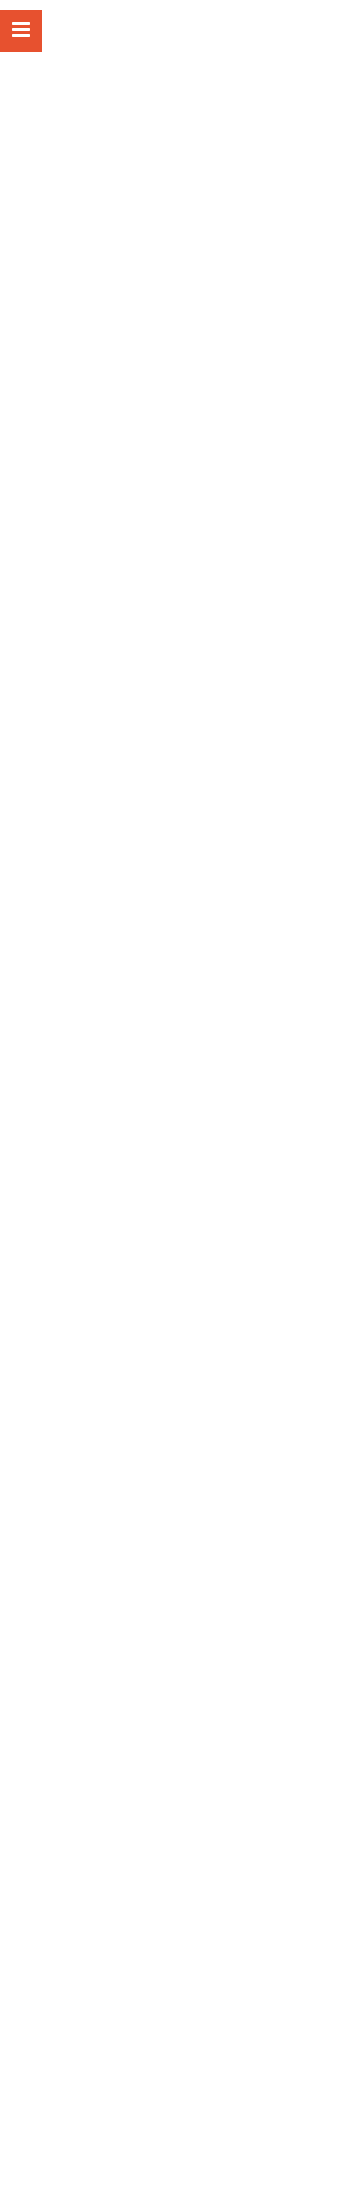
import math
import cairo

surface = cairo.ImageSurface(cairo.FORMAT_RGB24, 350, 2207)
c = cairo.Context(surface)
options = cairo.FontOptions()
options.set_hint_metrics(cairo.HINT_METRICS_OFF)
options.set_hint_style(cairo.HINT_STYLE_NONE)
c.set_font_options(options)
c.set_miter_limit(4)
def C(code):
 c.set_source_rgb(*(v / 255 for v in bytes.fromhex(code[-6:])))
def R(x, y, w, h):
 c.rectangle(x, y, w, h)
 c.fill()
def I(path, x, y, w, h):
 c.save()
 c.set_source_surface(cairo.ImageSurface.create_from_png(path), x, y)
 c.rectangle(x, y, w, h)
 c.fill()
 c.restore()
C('ffffff')
c.paint()
C('e7512f')
R(0,10,42,42)
I('1.png',12,22,18,15)
surface.write_to_png('o.png')
